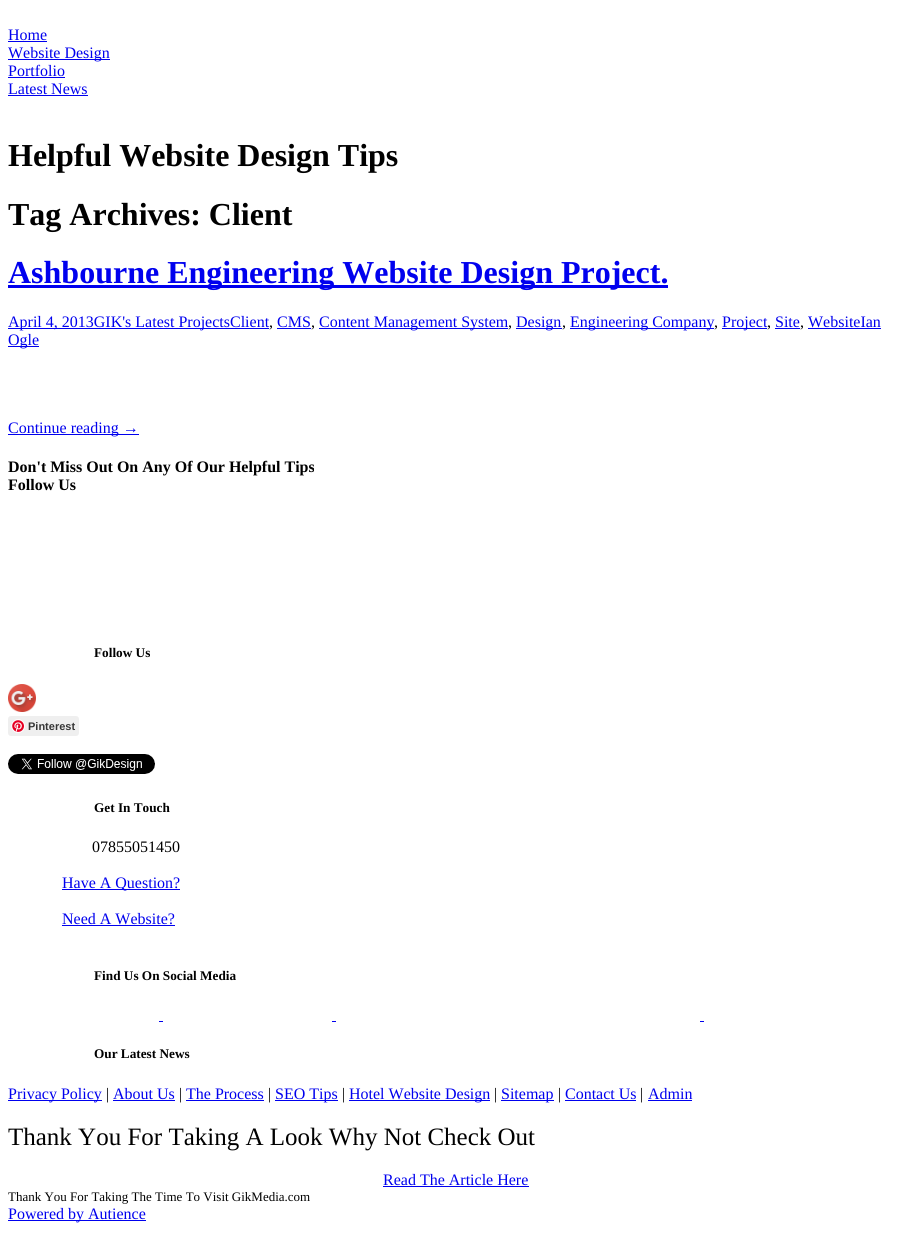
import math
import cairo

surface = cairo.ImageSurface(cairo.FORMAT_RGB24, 912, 1260)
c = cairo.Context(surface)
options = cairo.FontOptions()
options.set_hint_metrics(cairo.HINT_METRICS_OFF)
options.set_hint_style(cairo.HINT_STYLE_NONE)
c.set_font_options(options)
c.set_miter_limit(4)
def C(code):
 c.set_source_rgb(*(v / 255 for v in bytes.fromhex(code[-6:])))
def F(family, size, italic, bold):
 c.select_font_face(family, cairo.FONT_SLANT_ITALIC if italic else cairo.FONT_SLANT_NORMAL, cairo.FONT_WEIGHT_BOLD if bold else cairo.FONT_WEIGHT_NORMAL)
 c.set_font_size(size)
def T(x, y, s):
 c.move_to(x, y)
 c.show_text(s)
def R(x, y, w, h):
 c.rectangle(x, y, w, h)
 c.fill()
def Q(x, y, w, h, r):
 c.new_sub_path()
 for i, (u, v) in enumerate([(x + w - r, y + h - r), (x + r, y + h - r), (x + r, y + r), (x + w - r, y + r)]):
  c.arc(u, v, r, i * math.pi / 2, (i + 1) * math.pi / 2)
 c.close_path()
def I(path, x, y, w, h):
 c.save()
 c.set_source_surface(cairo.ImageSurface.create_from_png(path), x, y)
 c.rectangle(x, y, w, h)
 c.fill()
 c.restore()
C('ffffff')
c.paint()
F('Liberation Serif',16,0,0)
C('0000ee')
T(8,40,'Home')
R(8,41,39,1)
R(8,59,102,1)
T(8,58,'Website Design')
T(8,76,'Portfolio')
R(8,77,57,1)
T(8,94,'Latest News')
R(8,95,80,1)
F('Liberation Serif',32,0,1)
C('000000')
T(8,166,'Helpful Website Design Tips')
T(8,225,'Tag Archives: Client')
C('0000ee')
R(8,285,660,3)
T(8,283,'Ashbourne Engineering Website Design Project.')
R(8,328,261,1)
F('Liberation Serif',16,0,0)
T(8,327,'April 4, 2013GIK\'s Latest ProjectsClient')
C('000000')
T(269,327,',')
C('0000ee')
T(277,327,'CMS')
C('000000')
T(311,327,',')
C('0000ee')
R(277,328,34,1)
R(319,328,189,1)
T(319,327,'Content Management System')
C('000000')
T(508,327,',')
C('0000ee')
R(516,328,46,1)
T(516,327,'Design')
C('000000')
T(562,327,',')
C('0000ee')
R(570,328,144,1)
T(570,327,'Engineering Company')
C('000000')
T(714,327,',')
C('0000ee')
R(722,328,45,1)
T(722,327,'Project')
C('000000')
T(767,327,',')
C('0000ee')
T(775,327,'Site')
C('000000')
T(800,327,',')
C('0000ee')
R(775,328,25,1)
R(808,328,73,1)
T(808,327,'WebsiteIan')
R(8,346,31,1)
T(8,345,'Ogle')
R(8,434,131,1)
T(8,433,'Continue reading →')
F('Liberation Serif',16,0,1)
C('000000')
T(8,472,'Don\'t Miss Out On Any Of Our Helpful Tips')
T(8,490,'Follow Us')
F('Liberation Serif',13.25,0,1)
T(94,657,'Follow Us')
I('1.png',8,684,28,28)
C('efefef')
Q(8,716,71,20,3)
c.fill()
I('2.png',11,719,14,14)
F('Liberation Sans',11,0,1)
C('363636')
T(28,730,'Pinterest')
I('3.png',8,754,147,20)
F('Liberation Serif',13.25,0,1)
C('000000')
T(94,812,'Get In Touch')
F('Liberation Serif',16,0,0)
T(92,852,'07855051450')
C('0000ee')
R(62,889,118,1)
T(62,888,'Have A Question?')
T(62,924,'Need A Website?')
R(62,925,113,1)
F('Liberation Serif',13.25,0,1)
C('000000')
T(94,980,'Find Us On Social Media')
C('0000ee')
R(159,1021,4,1)
R(332,1021,4,1)
R(700,1021,4,1)
C('000000')
T(94,1058,'Our Latest News')
C('0000ee')
R(8,1100,94,1)
F('Liberation Serif',16,0,0)
T(8,1099,'Privacy Policy')
C('000000')
T(106,1099,'|')
C('0000ee')
T(113,1099,'About Us')
R(113,1100,62,1)
C('000000')
T(179,1099,'|')
C('0000ee')
T(186,1099,'The Process')
R(186,1100,78,1)
C('000000')
T(268,1099,'|')
C('0000ee')
R(275,1100,63,1)
T(275,1099,'SEO Tips')
C('000000')
T(342,1099,'|')
C('0000ee')
R(349,1100,141,1)
T(349,1099,'Hotel Website Design')
C('000000')
T(494,1099,'|')
C('0000ee')
R(501,1100,53,1)
T(501,1099,'Sitemap')
C('000000')
T(558,1099,'|')
C('0000ee')
T(565,1099,'Contact Us')
R(565,1100,71,1)
C('000000')
T(640,1099,'|')
C('0000ee')
T(648,1099,'Admin')
R(648,1100,44,1)
F('Liberation Serif',25,0,0)
C('000000')
T(8,1145,'Thank You For Taking A Look Why Not Check Out')
F('Liberation Serif',16,0,0)
C('0000ee')
T(383,1185,'Read The Article Here')
R(383,1186,146,1)
F('Liberation Serif',13,0,0)
C('000000')
T(8,1201,'Thank You For Taking The Time To Visit GikMedia.com')
C('0000ee')
R(8,1220,138,1)
F('Liberation Serif',16,0,0)
T(8,1219,'Powered by Autience')
surface.write_to_png('o.png')
